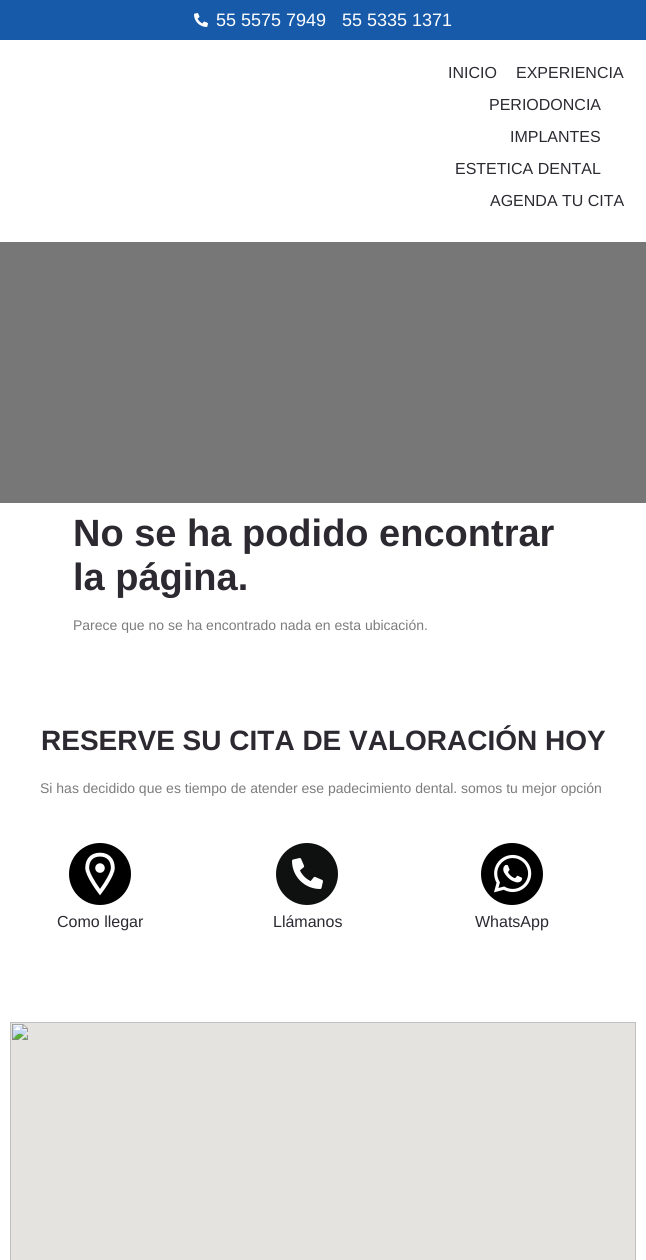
import math
import cairo

surface = cairo.ImageSurface(cairo.FORMAT_RGB24, 646, 1260)
c = cairo.Context(surface)
options = cairo.FontOptions()
options.set_hint_metrics(cairo.HINT_METRICS_OFF)
options.set_hint_style(cairo.HINT_STYLE_NONE)
c.set_font_options(options)
c.set_miter_limit(4)
def C(code):
 c.set_source_rgb(*(v / 255 for v in bytes.fromhex(code[-6:])))
def F(family, size, italic, bold):
 c.select_font_face(family, cairo.FONT_SLANT_ITALIC if italic else cairo.FONT_SLANT_NORMAL, cairo.FONT_WEIGHT_BOLD if bold else cairo.FONT_WEIGHT_NORMAL)
 c.set_font_size(size)
def T(x, y, s):
 c.move_to(x, y)
 c.show_text(s)
def R(x, y, w, h):
 c.rectangle(x, y, w, h)
 c.fill()
def I(path, x, y, w, h):
 c.save()
 c.set_source_surface(cairo.ImageSurface.create_from_png(path), x, y)
 c.rectangle(x, y, w, h)
 c.fill()
 c.restore()
C('ffffff')
c.paint()
C('165aa9')
R(0,0,646,40)
I('1.png',194,13,14,14)
F('Liberation Sans',18,0,0)
C('ffffff')
T(216,26,'55 5575 7949')
T(342,26,'55 5335 1371')
F('Liberation Sans',16,0,0)
C('2c2931')
T(448,78,'INICIO')
T(516,78,'EXPERIENCIA')
T(489,110,'PERIODONCIA')
T(510,142,'IMPLANTES')
T(455,174,'ESTETICA DENTAL')
T(490,206,'AGENDA TU CITA')
C('777777')
R(0,242,646,261)
F('Liberation Sans',38,0,1)
C('2c2931')
T(73,546,'No se ha podido encontrar')
T(73,590,'la página.')
F('Liberation Sans',14,0,0)
C('7c7c7c')
T(73,630,'Parece que no se ha encontrado nada en esta ubicación.')
F('Liberation Sans',28,0,1)
C('2c2931')
T(41,750,'RESERVE SU CITA DE VALORACIÓN HOY')
F('Liberation Sans',14,0,0)
C('7c7c7c')
T(40,793,'Si has decidido que es tiempo de atender ese padecimiento dental. somos tu mejor opción')
I('2.png',69,843,62,62)
F('Liberation Sans',16,0,0)
C('2c2931')
T(57,927,'Como llegar')
C('0f1010')
c.new_path()
c.arc(307,874,31,0,2 * math.pi)
c.fill()
I('3.png',292,858,31,31)
C('2c2931')
T(273,927,'Llámanos')
I('4.png',481,843,62,62)
T(475,927,'WhatsApp')
I('5.png',10,1022,626,238)
surface.write_to_png('o.png')
